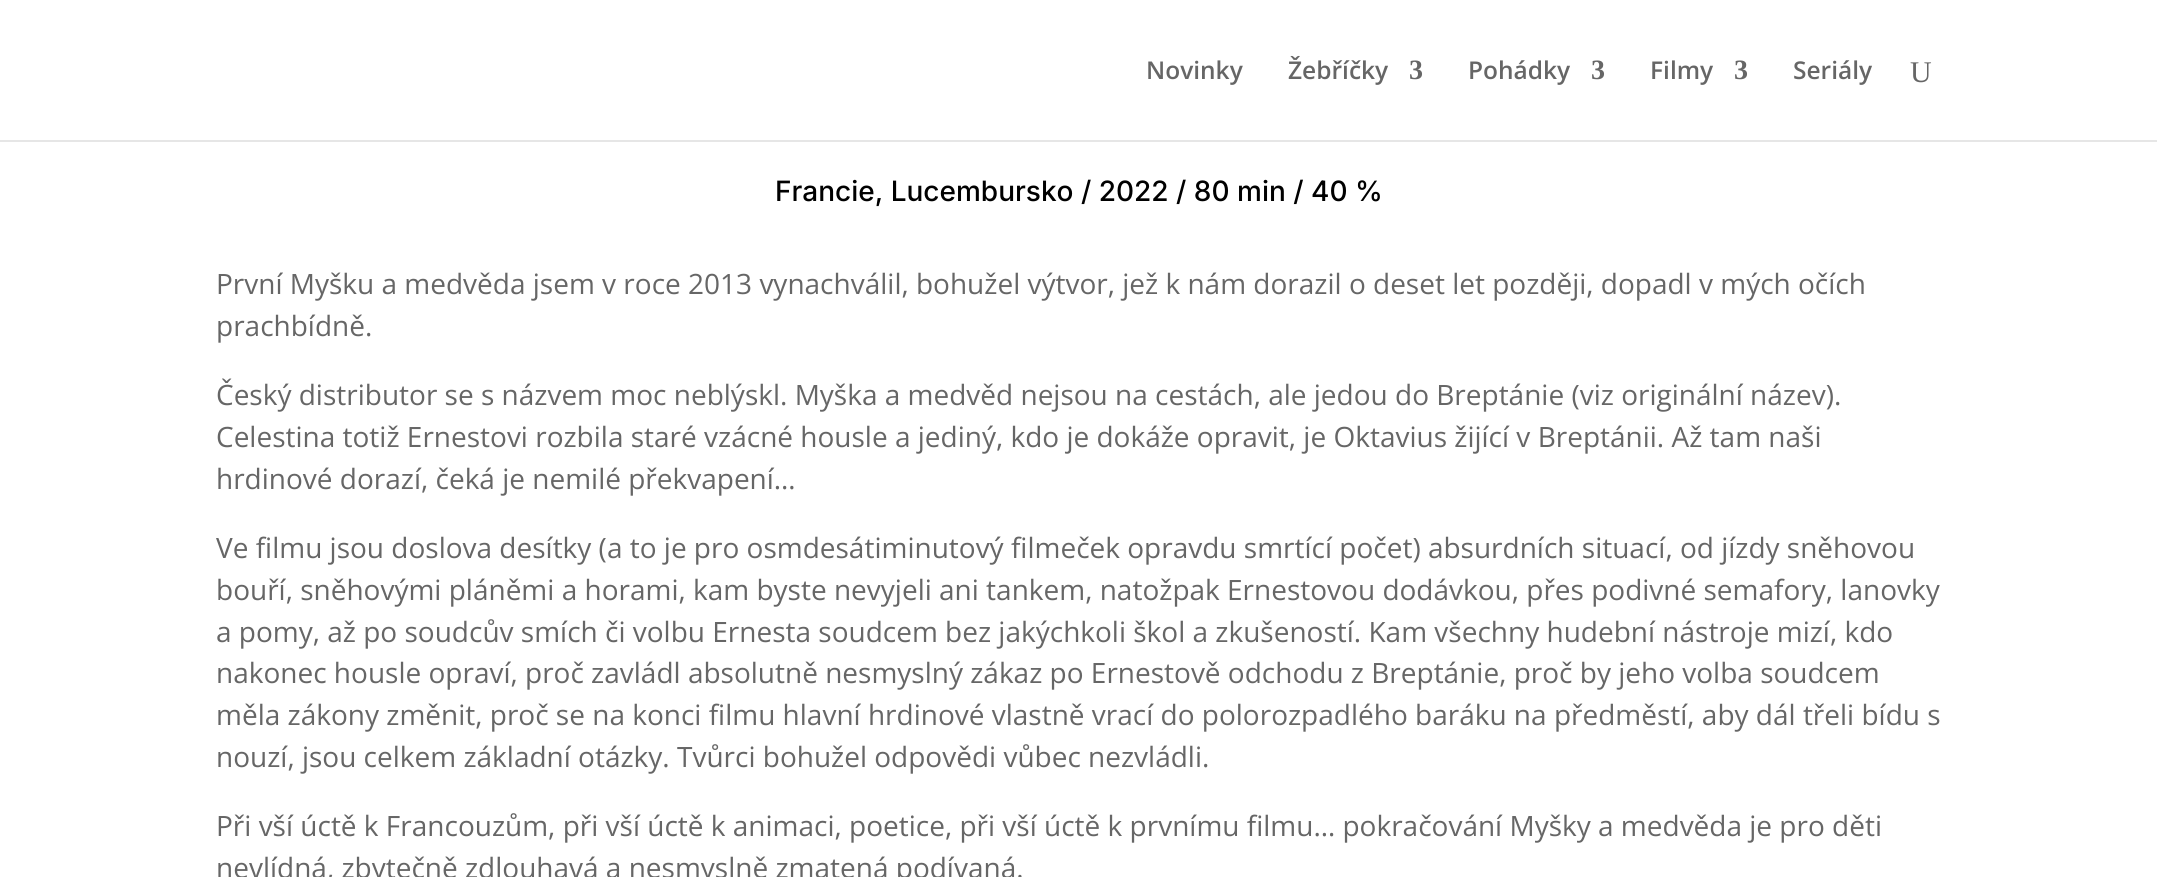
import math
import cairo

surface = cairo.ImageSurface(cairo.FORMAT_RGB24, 2157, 877)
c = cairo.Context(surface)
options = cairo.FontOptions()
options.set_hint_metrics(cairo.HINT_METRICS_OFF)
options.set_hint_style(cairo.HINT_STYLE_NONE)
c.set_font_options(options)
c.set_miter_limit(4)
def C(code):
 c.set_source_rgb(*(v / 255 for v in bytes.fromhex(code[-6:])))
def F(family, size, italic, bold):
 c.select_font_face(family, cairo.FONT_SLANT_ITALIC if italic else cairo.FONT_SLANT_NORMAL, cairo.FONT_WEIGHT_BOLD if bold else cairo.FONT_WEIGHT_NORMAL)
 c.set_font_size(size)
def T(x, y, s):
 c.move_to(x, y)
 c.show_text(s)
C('ffffff')
c.paint()
C('e6e6e6')
c.new_path()
c.move_to(0,140)
c.line_to(0,142)
c.line_to(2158,142)
c.line_to(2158,2)
c.line_to(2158,140)
c.close_path()
c.fill()
F('Open Sans SemiBold',24.5,0,0)
C('666666')
T(1146,79,'Novinky')
T(1288,79,'Žebříčky')
F('Liberation Serif',28,0,1)
T(1409,79,'3')
F('Open Sans SemiBold',24.5,0,0)
T(1468,79,'Pohádky')
F('Liberation Serif',28,0,1)
T(1591,79,'3')
F('Open Sans SemiBold',24.5,0,0)
T(1650,79,'Filmy')
F('Liberation Serif',28,0,1)
T(1734,79,'3')
F('Open Sans SemiBold',24.5,0,0)
T(1793,79,'Seriály')
F('Liberation Serif',30,0,0)
T(1910,82,'U')
F('Inter Medium',28,0,0)
C('000000')
T(775,201,'Francie, Lucembursko / 2022 / 80 min / 40 %')
F('Open Sans',28,0,0)
C('666666')
T(216,294,'První Myšku a medvěda jsem v roce 2013 vynachválil, bohužel výtvor, jež k nám dorazil o deset let později, dopadl v mých očích')
T(216,336,'prachbídně.')
T(216,405,'Český distributor se s názvem moc neblýskl. Myška a medvěd nejsou na cestách, ale jedou do Breptánie (viz originální název).')
T(216,447,'Celestina totiž Ernestovi rozbila staré vzácné housle a jediný, kdo je dokáže opravit, je Oktavius žijící v Breptánii. Až tam naši')
T(216,489,'hrdinové dorazí, čeká je nemilé překvapení…')
T(216,558,'Ve filmu jsou doslova desítky (a to je pro osmdesátiminutový filmeček opravdu smrtící počet) absurdních situací, od jízdy sněhovou')
T(216,600,'bouří, sněhovými pláněmi a horami, kam byste nevyjeli ani tankem, natožpak Ernestovou dodávkou, přes podivné semafory, lanovky')
T(216,642,'a pomy, až po soudcův smích či volbu Ernesta soudcem bez jakýchkoli škol a zkušeností. Kam všechny hudební nástroje mizí, kdo')
T(216,683,'nakonec housle opraví, proč zavládl absolutně nesmyslný zákaz po Ernestově odchodu z Breptánie, proč by jeho volba soudcem')
T(216,725,'měla zákony změnit, proč se na konci filmu hlavní hrdinové vlastně vrací do polorozpadlého baráku na předměstí, aby dál třeli bídu s')
T(216,767,'nouzí, jsou celkem základní otázky. Tvůrci bohužel odpovědi vůbec nezvládli.')
T(216,836,'Při vší úctě k Francouzům, při vší úctě k animaci, poetice, při vší úctě k prvnímu filmu… pokračování Myšky a medvěda je pro děti')
T(216,878,'nevlídná, zbytečně zdlouhavá a nesmyslně zmatená podívaná.')
surface.write_to_png('o.png')
